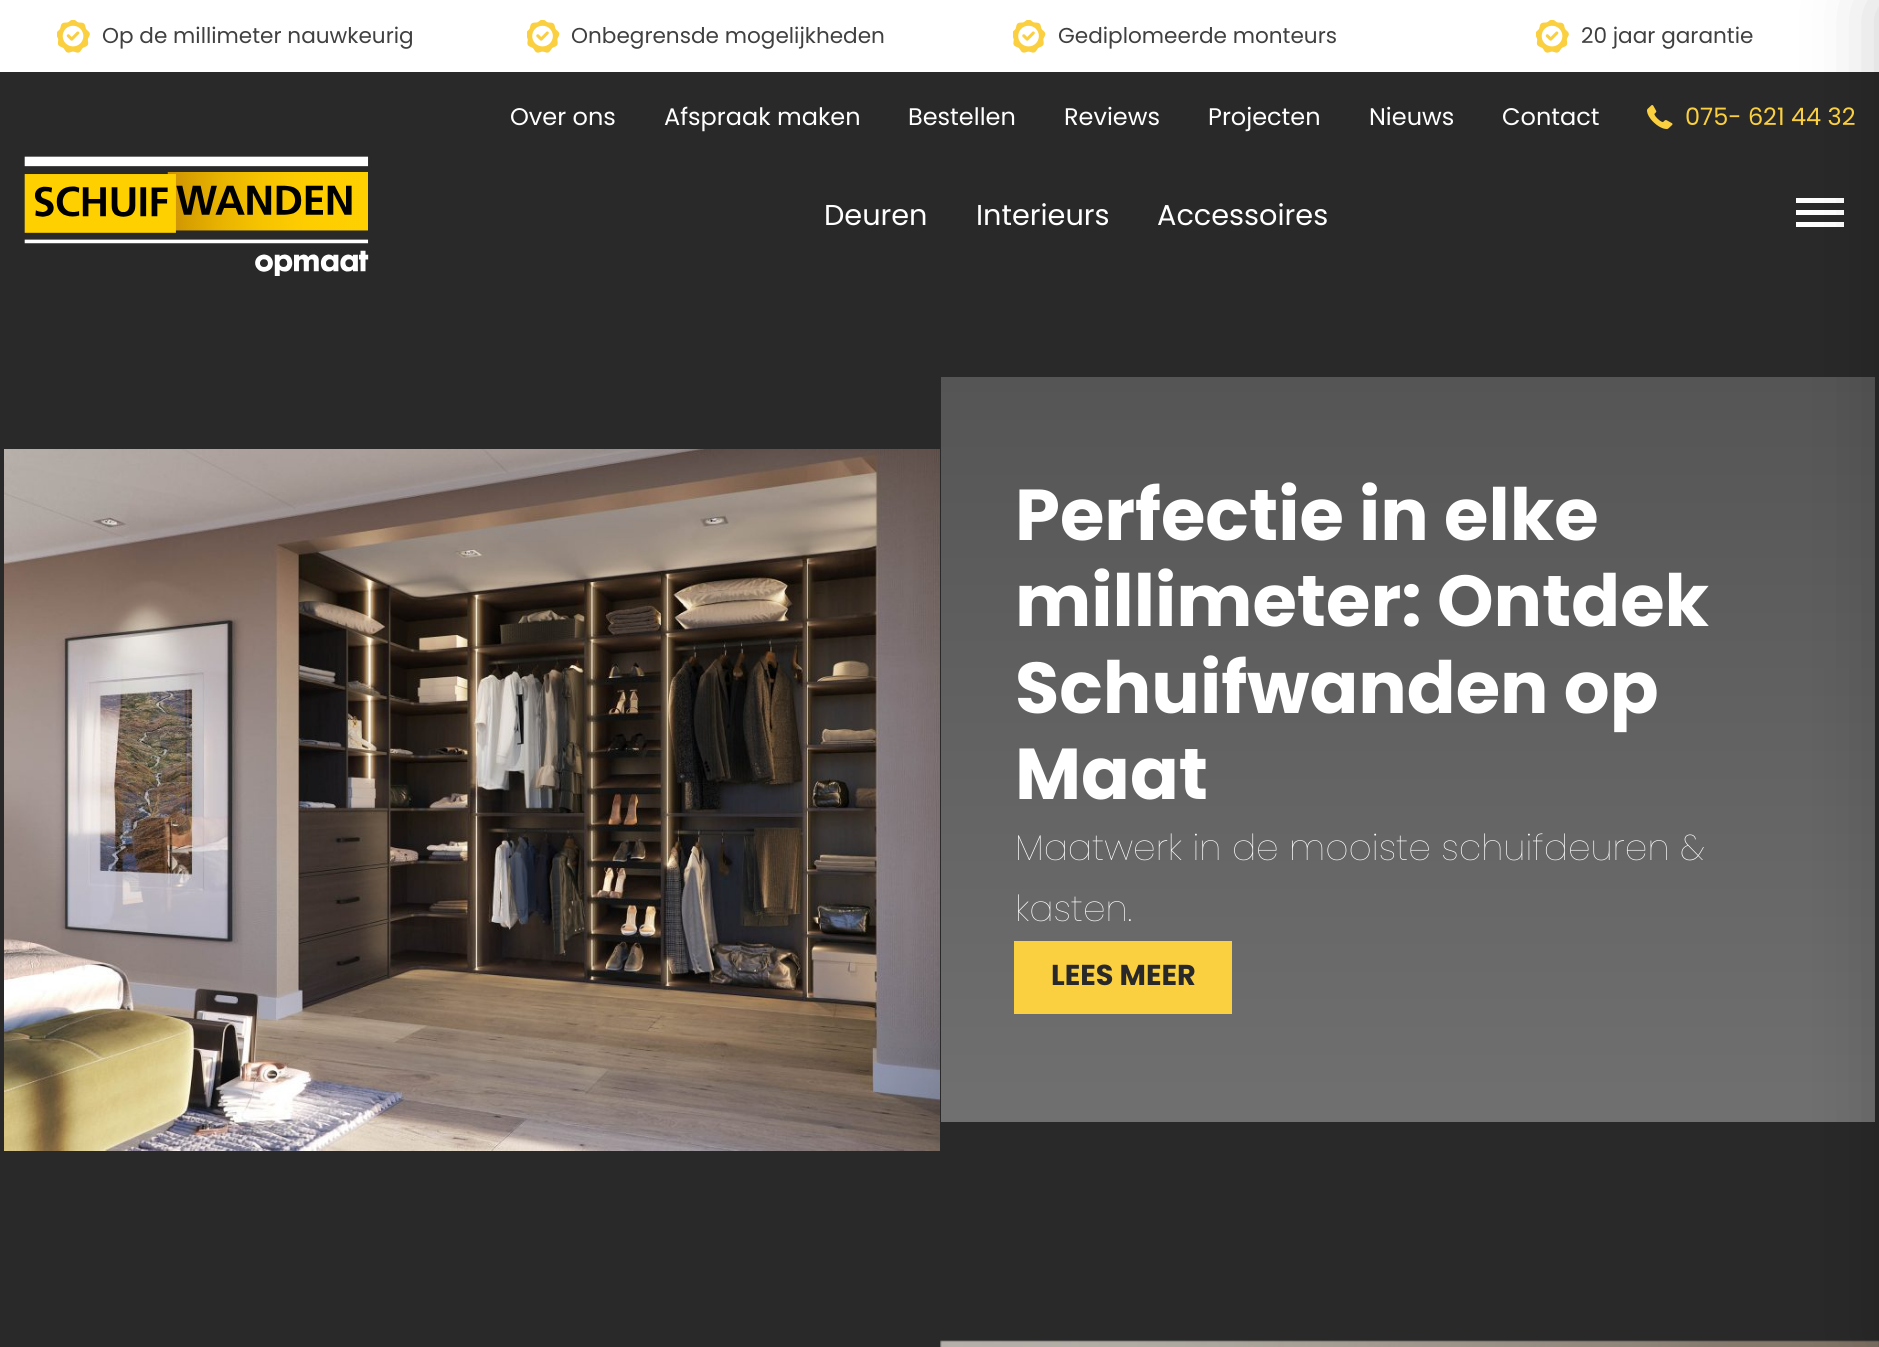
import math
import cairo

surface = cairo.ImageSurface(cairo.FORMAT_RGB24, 1879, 1347)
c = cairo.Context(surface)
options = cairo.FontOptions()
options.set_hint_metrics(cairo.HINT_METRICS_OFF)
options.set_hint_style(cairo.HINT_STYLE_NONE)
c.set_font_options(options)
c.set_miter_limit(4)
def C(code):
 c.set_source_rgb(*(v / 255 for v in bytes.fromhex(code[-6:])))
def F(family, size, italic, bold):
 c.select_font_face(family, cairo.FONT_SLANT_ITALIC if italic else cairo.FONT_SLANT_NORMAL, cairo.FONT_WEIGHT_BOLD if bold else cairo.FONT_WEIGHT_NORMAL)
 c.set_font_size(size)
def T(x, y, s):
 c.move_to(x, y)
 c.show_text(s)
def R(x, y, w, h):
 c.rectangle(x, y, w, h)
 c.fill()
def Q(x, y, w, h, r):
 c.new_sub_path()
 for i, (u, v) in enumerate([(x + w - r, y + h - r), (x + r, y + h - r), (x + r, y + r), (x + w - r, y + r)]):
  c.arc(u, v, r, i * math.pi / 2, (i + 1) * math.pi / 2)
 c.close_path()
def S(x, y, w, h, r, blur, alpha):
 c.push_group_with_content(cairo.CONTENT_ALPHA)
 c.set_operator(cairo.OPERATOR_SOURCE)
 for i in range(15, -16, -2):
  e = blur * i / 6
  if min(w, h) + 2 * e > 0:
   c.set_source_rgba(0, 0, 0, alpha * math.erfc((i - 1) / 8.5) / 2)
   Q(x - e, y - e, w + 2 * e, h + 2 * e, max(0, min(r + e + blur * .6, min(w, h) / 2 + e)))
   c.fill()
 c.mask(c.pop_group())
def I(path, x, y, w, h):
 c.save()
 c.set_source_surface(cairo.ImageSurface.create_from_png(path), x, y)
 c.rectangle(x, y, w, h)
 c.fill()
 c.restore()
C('292929')
c.paint()
C('ffffff')
R(0,0,1879,72)
R(1796,210,48,5)
R(1796,198,48,5)
R(1796,222,48,5)
gradient = cairo.LinearGradient(940,376,940,1122)
gradient.add_color_stop_rgba(0,0.333,0.333,0.333,1)
gradient.add_color_stop_rgba(1,0.439,0.439,0.439,1)
c.set_source(gradient)
R(941,377,934,745)
I('6.png',940,1340,939,7)
C('000000')
S(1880,0,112,1347,0,37.5,.2)
I('1.png',57,20,33,33)
F('Poppins',21.6,0,0)
C('404040')
T(102,43,'Op de millimeter nauwkeurig')
I('2.png',527,20,33,33)
T(571,43,'Onbegrensde mogelijkheden')
I('2.png',1013,20,33,33)
T(1058,43,'Gediplomeerde monteurs')
I('1.png',1536,20,33,33)
T(1581,43,'20 jaar garantie')
F('Poppins',24,0,0)
C('ffffff')
T(510,125,'Over ons')
T(664,125,'Afspraak maken')
T(908,125,'Bestellen')
T(1064,125,'Reviews')
T(1208,125,'Projecten')
T(1369,125,'Nieuws')
T(1502,125,'Contact')
I('3.png',1647,105,26,24)
C('facf40')
T(1685,125,'075- 621 44 32')
I('4.png',24,156,345,120)
F('Poppins',28.75,0,0)
C('ffffff')
T(824,225,'Deuren')
T(976,225,'Interieurs')
T(1157,225,'Accessoires')
I('5.png',4,449,936,702)
F('Poppins',72,0,1)
T(1015,540,'Perfectie in elke')
T(1015,626,'millimeter: Ontdek')
T(1015,713,'Schuifwanden op')
T(1015,799,'Maat')
F('Poppins Thin',36,0,0)
T(1015,860,'Maatwerk in de mooiste schuifdeuren &')
T(1015,921,'kasten.')
C('facf40')
R(1014,941,218,73)
F('Poppins',28.75,0,1)
C('292929')
T(1051,985,'LEES MEER')
surface.write_to_png('o.png')
